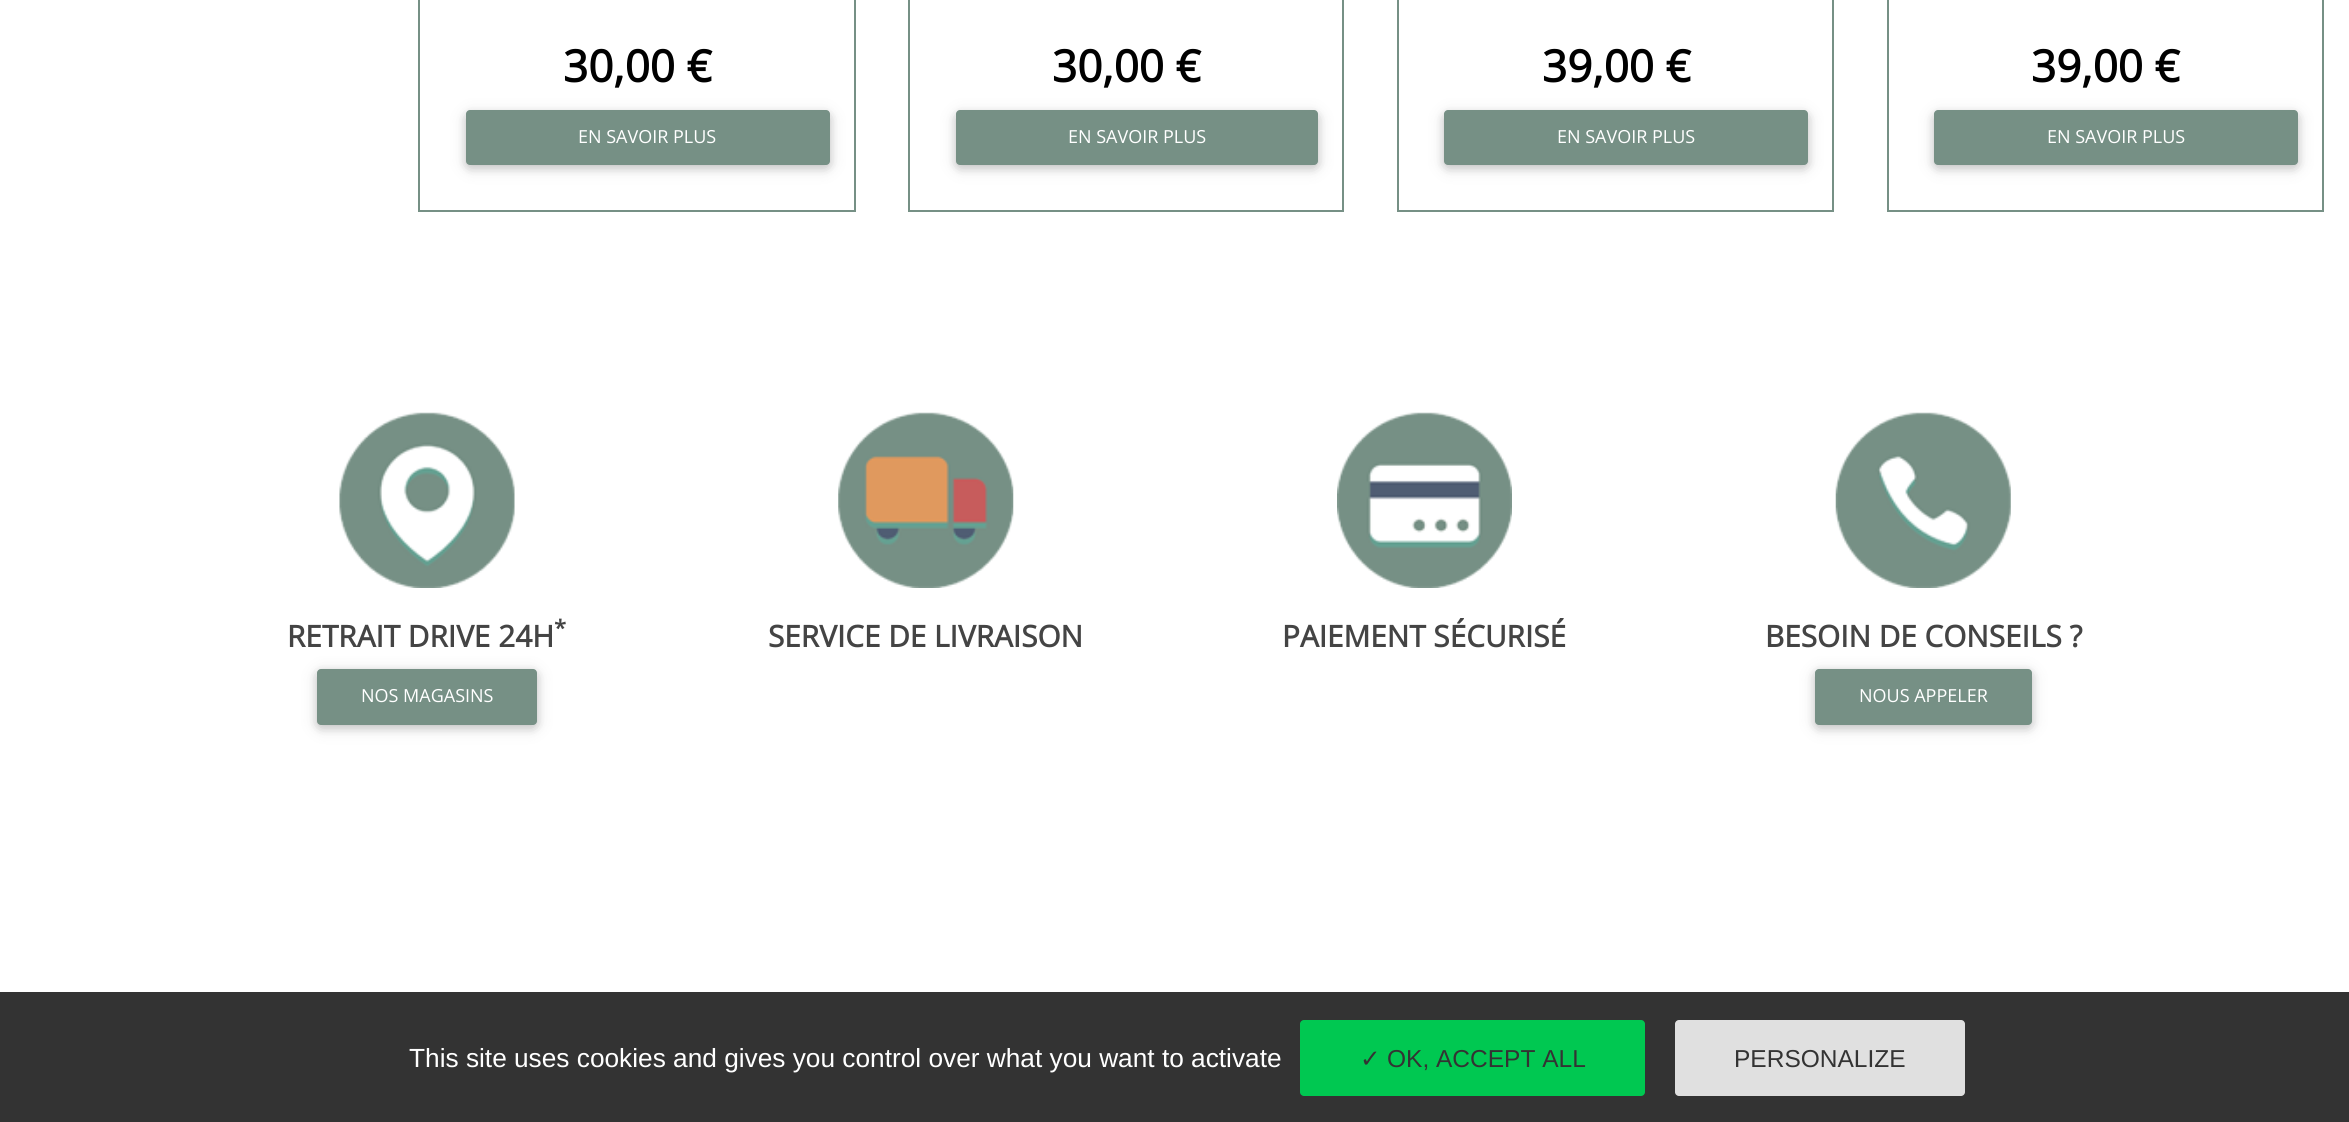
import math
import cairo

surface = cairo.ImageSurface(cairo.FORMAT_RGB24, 2349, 1122)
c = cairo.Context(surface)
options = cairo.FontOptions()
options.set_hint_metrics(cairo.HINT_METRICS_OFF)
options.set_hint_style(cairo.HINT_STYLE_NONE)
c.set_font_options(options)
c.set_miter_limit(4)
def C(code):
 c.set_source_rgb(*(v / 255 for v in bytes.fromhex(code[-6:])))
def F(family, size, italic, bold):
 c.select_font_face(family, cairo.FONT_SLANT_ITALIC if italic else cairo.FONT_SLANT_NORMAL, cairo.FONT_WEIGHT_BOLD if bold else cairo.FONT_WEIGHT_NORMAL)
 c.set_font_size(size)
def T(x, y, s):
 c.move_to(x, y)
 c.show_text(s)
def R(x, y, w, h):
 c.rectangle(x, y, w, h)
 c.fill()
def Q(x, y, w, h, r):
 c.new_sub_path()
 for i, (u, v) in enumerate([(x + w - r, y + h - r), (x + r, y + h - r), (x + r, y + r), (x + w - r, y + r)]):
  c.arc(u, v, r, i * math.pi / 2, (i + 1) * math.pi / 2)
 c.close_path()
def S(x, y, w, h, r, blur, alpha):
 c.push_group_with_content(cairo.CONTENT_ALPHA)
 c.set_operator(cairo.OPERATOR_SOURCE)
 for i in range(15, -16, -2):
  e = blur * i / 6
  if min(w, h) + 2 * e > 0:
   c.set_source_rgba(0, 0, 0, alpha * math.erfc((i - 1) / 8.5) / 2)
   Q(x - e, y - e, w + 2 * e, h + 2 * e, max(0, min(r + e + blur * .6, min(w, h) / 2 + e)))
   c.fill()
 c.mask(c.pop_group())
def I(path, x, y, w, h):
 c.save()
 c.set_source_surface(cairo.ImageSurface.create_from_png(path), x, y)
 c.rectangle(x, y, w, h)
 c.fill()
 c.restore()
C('ffffff')
c.paint()
c.rectangle(419,-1,436,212)
C('769085')
c.stroke()
F('Open Sans',44,0,1)
C('000000')
T(563,82,'30,00 €')
C('000000')
S(466,114,364,54,4,9,.12)
S(466,114,364,54,4,4.5,.16)
C('769085')
Q(466,110,364,55,4)
c.fill()
F('Open Sans',18,0,0)
C('ffffff')
T(578,143,'EN SAVOIR PLUS')
c.rectangle(909,-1,434,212)
C('769085')
c.stroke()
F('Open Sans',44,0,1)
C('000000')
T(1052,82,'30,00 €')
C('000000')
S(956,114,362,54,4,9,.12)
S(956,114,362,54,4,4.5,.16)
C('769085')
Q(956,110,362,55,4)
c.fill()
F('Open Sans',18,0,0)
C('ffffff')
T(1068,143,'EN SAVOIR PLUS')
c.rectangle(1398,-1,435,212)
C('769085')
c.stroke()
F('Open Sans',44,0,1)
C('000000')
T(1542,82,'39,00 €')
C('000000')
S(1444,114,364,54,4,9,.12)
S(1444,114,364,54,4,4.5,.16)
C('769085')
Q(1444,110,364,55,4)
c.fill()
F('Open Sans',18,0,0)
C('ffffff')
T(1557,143,'EN SAVOIR PLUS')
c.rectangle(1888,-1,435,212)
C('769085')
c.stroke()
F('Open Sans',44,0,1)
C('000000')
T(2031,82,'39,00 €')
C('000000')
S(1934,114,364,54,4,9,.12)
S(1934,114,364,54,4,4.5,.16)
C('769085')
Q(1934,110,364,55,4)
c.fill()
F('Open Sans',18,0,0)
C('ffffff')
T(2047,143,'EN SAVOIR PLUS')
I('1.png',339,412,176,176)
F('Open Sans',22,0,1)
C('444444')
T(554,636,'*')
F('Open Sans',29.75,0,1)
T(287,647,'RETRAIT DRIVE 24H')
C('000000')
S(317,672,220,56,4,9,.12)
S(317,672,220,56,4,4.5,.16)
C('769085')
Q(317,669,220,56,4)
c.fill()
F('Open Sans',18,0,0)
C('ffffff')
T(361,702,'NOS MAGASINS')
I('2.png',838,412,176,176)
F('Open Sans',29.75,0,1)
C('444444')
T(768,647,'SERVICE DE LIVRAISON')
I('3.png',1337,412,175,176)
T(1282,647,'PAIEMENT SÉCURISÉ')
I('4.png',1835,412,176,176)
T(1765,647,'BESOIN DE CONSEILS ?')
C('000000')
S(1815,672,217,56,4,9,.12)
S(1815,672,217,56,4,4.5,.16)
C('769085')
Q(1815,669,217,56,4)
c.fill()
F('Open Sans',18,0,0)
C('ffffff')
T(1859,702,'NOUS APPELER')
C('333333')
R(0,992,2349,130)
F('Liberation Sans',26.25,0,0)
C('ffffff')
T(409,1067,'This site uses cookies and gives you control over what you want to activate')
C('00c851')
Q(1300,1020,345,76,4)
c.fill()
F('DejaVu Sans',24.5,0,0)
C('333333')
T(1360,1067,'✓')
F('Liberation Sans',24.5,0,0)
T(1387,1067,'OK, ACCEPT ALL')
C('e0e0e0')
Q(1675,1020,290,76,4)
c.fill()
C('333333')
T(1734,1067,'PERSONALIZE')
surface.write_to_png('o.png')
